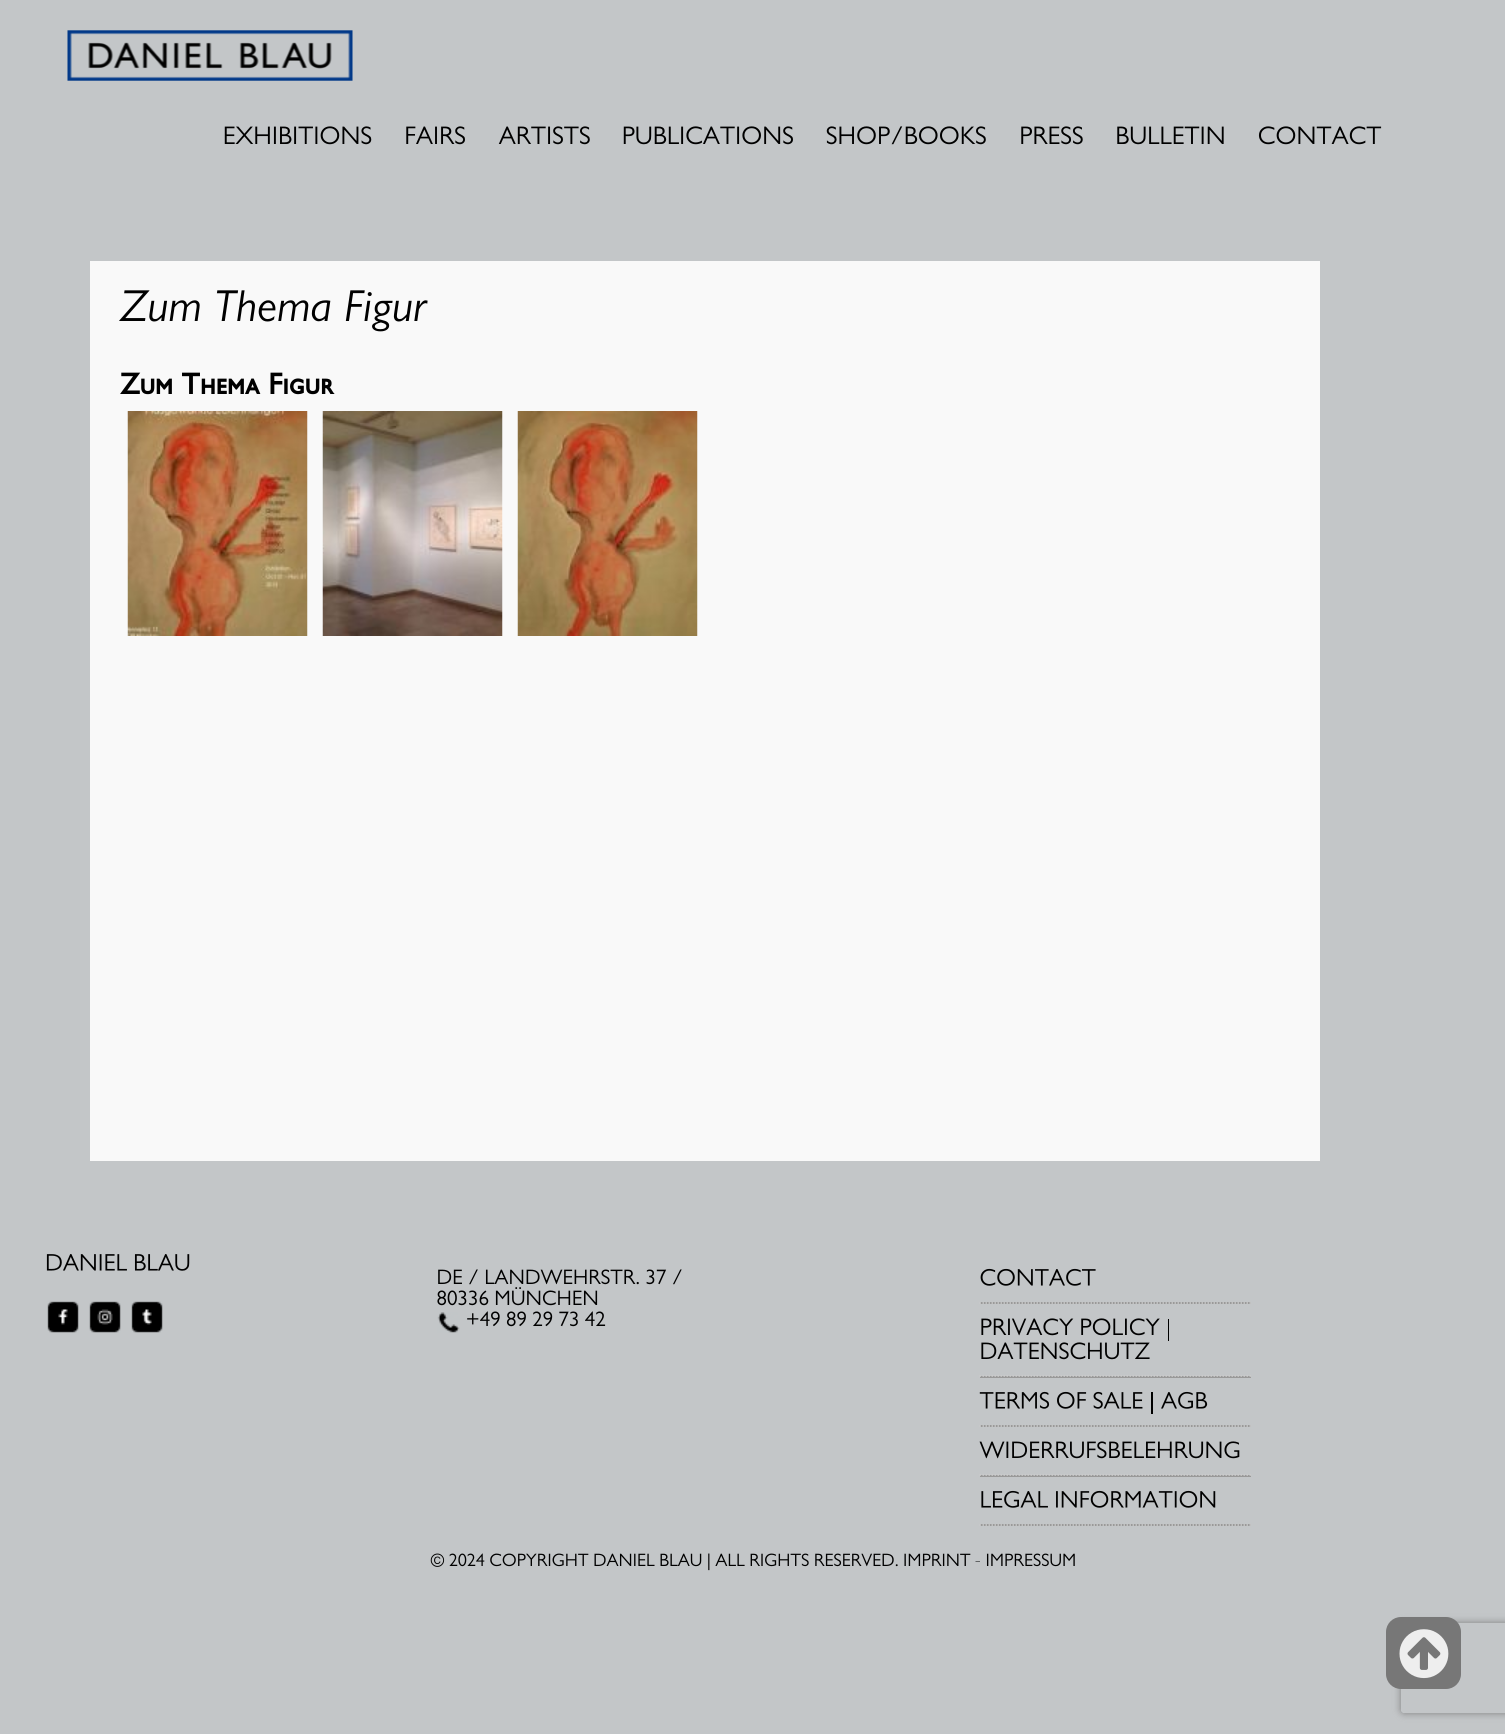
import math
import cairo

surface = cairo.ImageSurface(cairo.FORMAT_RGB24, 1505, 1734)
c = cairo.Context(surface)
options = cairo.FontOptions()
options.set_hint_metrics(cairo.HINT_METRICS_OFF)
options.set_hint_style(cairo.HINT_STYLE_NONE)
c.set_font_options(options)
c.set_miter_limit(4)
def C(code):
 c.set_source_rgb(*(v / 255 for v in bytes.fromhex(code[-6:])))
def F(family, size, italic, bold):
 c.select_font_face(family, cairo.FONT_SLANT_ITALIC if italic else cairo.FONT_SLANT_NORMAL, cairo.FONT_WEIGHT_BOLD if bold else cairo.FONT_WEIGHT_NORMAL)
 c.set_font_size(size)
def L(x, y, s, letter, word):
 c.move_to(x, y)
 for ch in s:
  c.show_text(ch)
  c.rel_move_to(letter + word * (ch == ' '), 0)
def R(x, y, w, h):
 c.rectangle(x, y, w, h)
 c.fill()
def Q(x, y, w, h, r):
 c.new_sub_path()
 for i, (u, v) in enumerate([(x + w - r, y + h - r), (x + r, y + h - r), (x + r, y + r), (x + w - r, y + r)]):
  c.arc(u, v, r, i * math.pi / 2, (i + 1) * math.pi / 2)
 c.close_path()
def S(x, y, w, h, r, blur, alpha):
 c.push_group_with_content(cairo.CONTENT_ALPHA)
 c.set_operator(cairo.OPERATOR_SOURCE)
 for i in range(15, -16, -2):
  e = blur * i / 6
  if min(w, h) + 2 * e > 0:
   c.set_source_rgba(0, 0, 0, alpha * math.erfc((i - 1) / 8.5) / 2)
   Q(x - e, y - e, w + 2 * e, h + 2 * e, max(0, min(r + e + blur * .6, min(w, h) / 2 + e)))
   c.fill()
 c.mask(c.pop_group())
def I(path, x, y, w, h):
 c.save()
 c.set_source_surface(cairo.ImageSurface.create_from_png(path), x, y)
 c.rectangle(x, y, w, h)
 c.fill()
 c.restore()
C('c3c6c8')
c.paint()
I('1.png',67,30,286,51)
I('2.png',224,126,148,19)
I('3.png',406,126,59,19)
I('4.png',498,126,92,19)
I('5.png',623,126,170,19)
I('6.png',826,126,160,19)
I('7.png',1021,126,62,19)
I('8.png',1117,126,107,19)
I('9.png',1258,126,124,19)
C('f9f9f9')
R(90,261,1230,900)
I('10.png',119,290,309,42)
F('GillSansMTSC',30,0,1)
C('000000')
L(120,394,'Zum Thema Figur',.25,0)
I('11.png',127,411,181,225)
I('12.png',322,411,181,225)
I('13.png',517,411,181,225)
I('14.png',46,1254,144,17)
I('15.png',47,1301,32,32)
I('16.png',89,1301,32,32)
I('17.png',131,1301,32,32)
I('18.png',438,1269,244,16)
I('19.png',437,1287,161,19)
I('20.png',437,1312,23,21)
I('21.png',467,1311,139,16)
I('22.png',980,1268,116,18)
C('999999')
R(980,1302,271,2)
c.new_path()
c.move_to(979.5,1303)
c.line_to(1251,1303)
C('cccccc')
c.set_line_width(1.5)
c.set_dash([1.5,1.5])
c.stroke()
I('23.png',981,1318,179,18)
C('000000')
R(1168,1319,1,22)
I('24.png',981,1342,169,18)
C('999999')
R(980,1376,271,2)
c.new_path()
c.move_to(979.5,1376)
c.line_to(1251,1376)
C('cccccc')
c.stroke()
I('25.png',979,1391,164,18)
C('000000')
R(1151,1392,2,22)
I('26.png',1161,1391,47,18)
C('999999')
R(980,1425,271,2)
c.new_path()
c.move_to(979.5,1426)
c.line_to(1251,1426)
C('cccccc')
c.stroke()
I('27.png',979,1441,261,18)
C('999999')
R(980,1475,271,2)
c.new_path()
c.move_to(979.5,1475)
c.line_to(1251,1475)
C('cccccc')
c.stroke()
I('28.png',981,1490,235,18)
C('999999')
R(980,1524,271,2)
c.new_path()
c.move_to(979.5,1525)
c.line_to(1251,1525)
C('cccccc')
c.stroke()
I('29.png',430,1553,468,18)
I('30.png',904,1553,67,13)
C('000000')
c.new_path()
c.move_to(980,1561.5)
c.line_to(980,1562)
c.line_to(975.5,1562)
c.line_to(975.5,1561.5)
c.close_path()
c.fill()
I('31.png',986,1553,89,14)
c.save()
c.set_fill_rule(cairo.FILL_RULE_EVEN_ODD)
c.new_path()
c.move_to(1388,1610)
c.line_to(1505,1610)
c.line_to(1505,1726)
c.line_to(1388,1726)
c.close_path()
c.move_to(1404,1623)
c.line_to(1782,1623)
c.curve_to(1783.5,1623,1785,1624.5,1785,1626)
c.line_to(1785,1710)
c.curve_to(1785,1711.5,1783.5,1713,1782,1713)
c.line_to(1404,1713)
c.curve_to(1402.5,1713,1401,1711.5,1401,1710)
c.line_to(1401,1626)
c.curve_to(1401,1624.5,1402.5,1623,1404,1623)
c.close_path()
c.clip()
C('808080')
S(1401,1623,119,90,3,4,1)
c.restore()
C('777777')
Q(1386,1617,75,72,15)
c.fill()
I('32.png',1399,1629,50,50)
surface.write_to_png('o.png')
